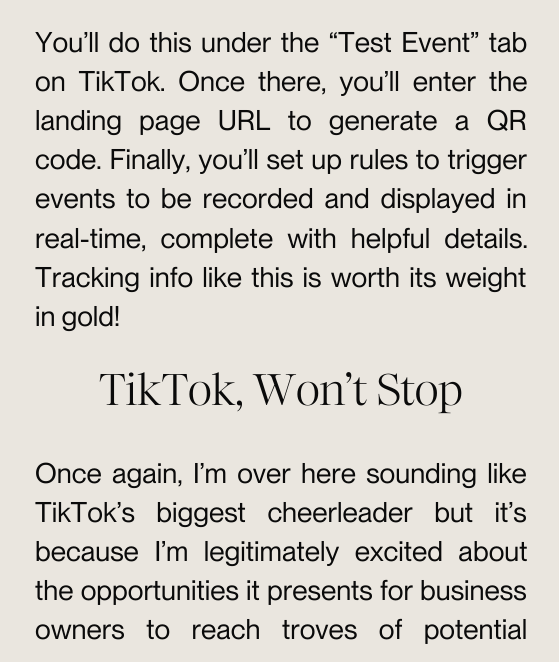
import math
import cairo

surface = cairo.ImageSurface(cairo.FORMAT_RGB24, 559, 662)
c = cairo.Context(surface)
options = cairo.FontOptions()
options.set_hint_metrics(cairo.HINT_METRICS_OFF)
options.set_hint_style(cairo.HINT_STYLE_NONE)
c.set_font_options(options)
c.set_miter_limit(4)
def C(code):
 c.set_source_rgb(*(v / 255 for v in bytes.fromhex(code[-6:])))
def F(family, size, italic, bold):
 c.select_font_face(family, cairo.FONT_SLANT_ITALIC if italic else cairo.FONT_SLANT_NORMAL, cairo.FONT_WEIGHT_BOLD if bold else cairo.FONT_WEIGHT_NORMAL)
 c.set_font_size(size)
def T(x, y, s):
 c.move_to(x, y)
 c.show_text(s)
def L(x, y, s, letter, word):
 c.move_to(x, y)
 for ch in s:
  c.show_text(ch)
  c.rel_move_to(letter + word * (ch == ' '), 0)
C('eae6df')
c.paint()
F('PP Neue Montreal',28,0,0)
C('0a0a0a')
L(35,52,'You’ll do this under the “Test Event” tab',0,3.5)
L(35,91,'on TikTok. Once there, you’ll enter the',0,7)
L(35,130,'landing page URL to generate a QR',0,11.25)
L(35,169,'code. Finally, you’ll set up rules to trigger',0,1.75)
L(35,208,'events to be recorded and displayed in',0,4.75)
L(35,248,'real-time, complete with helpful details.',0,8)
L(35,287,'Tracking info like this is worth its weight',0,3.25)
T(35,326,'in gold!')
F('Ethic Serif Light',45.5,0,0)
T(99,405,'TikTok, Won’t Stop')
F('PP Neue Montreal',28,0,0)
L(35,483,'Once again, I’m over here sounding like',0,4.25)
L(35,522,'TikTok’s biggest cheerleader but it’s',0,15.5)
L(35,561,'because I’m legitimately excited about',0,9.5)
L(35,600,'the opportunities it presents for business',0,1.25)
L(35,639,'owners to reach troves of potential',0,15.5)
surface.write_to_png('o.png')
